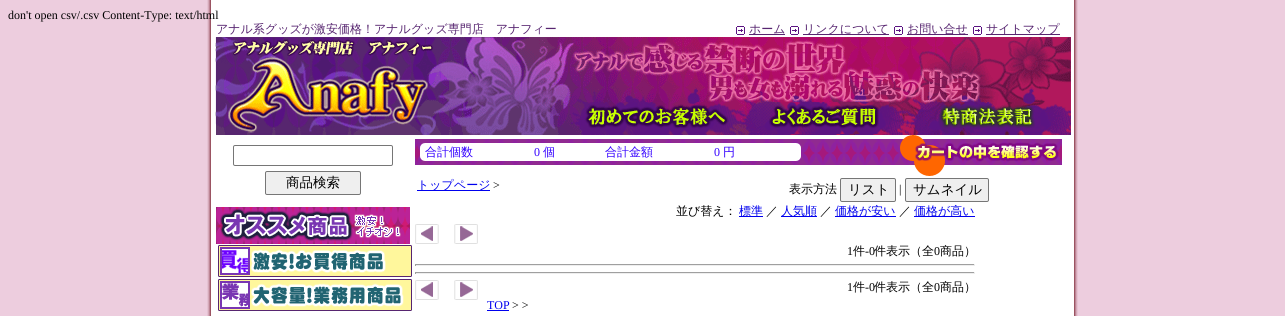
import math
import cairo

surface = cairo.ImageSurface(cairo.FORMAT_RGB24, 1285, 316)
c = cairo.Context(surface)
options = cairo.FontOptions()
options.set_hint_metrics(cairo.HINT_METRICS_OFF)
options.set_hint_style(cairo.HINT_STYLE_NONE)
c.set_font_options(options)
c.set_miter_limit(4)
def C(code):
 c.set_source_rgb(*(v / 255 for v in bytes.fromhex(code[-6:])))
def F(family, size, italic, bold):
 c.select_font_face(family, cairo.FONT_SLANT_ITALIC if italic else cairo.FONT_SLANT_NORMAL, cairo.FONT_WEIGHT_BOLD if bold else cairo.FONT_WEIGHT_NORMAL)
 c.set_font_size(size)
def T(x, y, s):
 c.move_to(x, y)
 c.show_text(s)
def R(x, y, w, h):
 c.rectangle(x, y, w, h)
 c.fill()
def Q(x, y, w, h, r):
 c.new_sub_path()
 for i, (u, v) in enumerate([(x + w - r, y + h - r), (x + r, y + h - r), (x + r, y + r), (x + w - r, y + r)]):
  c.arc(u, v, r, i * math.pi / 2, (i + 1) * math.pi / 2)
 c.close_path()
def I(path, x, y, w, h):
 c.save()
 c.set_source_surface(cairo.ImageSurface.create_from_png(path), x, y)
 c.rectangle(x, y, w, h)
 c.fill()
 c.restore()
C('edcdde')
c.paint()
I('1.png',207,0,871,316)
F('Liberation Serif',12,0,0)
C('000000')
T(8,19,'don\'t open csv/.csv Content-Type: text/html')
F('WenQuanYi Zen Hei Medium',12,0,0)
C('572570')
T(216,33,'アナル系グッズが激安価格！アナルグッズ専門店　アナフィー')
I('2.png',736,26,9,9)
R(749,34,36,1)
T(749,33,'ホーム')
I('2.png',790,26,9,9)
R(803,34,86,1)
T(803,33,'リンクについて')
I('2.png',894,26,9,9)
R(907,34,61,1)
T(907,33,'お問い合せ')
I('2.png',973,26,9,9)
R(986,34,74,1)
T(986,33,'サイトマップ')
I('3.png',215,37,226,98)
I('4.png',441,37,630,98)
I('5.png',581,102,154,32)
I('6.png',761,102,128,32)
I('7.png',930,102,115,32)
Q(233.5,145.5,159,20,1.5)
C('767676')
c.set_line_width(1)
c.stroke()
C('efefef')
Q(265.5,171.5,95,23,1.5)
c.fill_preserve()
C('767676')
c.stroke()
F('WenQuanYi Zen Hei Medium',13.5,0,0)
C('000000')
T(286,187,'商品検索')
I('8.png',216,207,194,37)
I('9.png',218,245,194,32)
I('10.png',218,279,194,32)
I('11.png',415,135,647,41)
F('WenQuanYi Zen Hei Medium',12,0,0)
C('3300ff')
T(425,156,'合計個数')
F('Liberation Serif',12,0,0)
T(534,156,'0')
F('WenQuanYi Zen Hei Medium',12,0,0)
T(543,156,'個')
T(605,156,'合計金額')
F('Liberation Serif',12,0,0)
T(714,156,'0')
F('WenQuanYi Zen Hei Medium',12,0,0)
T(723,156,'円')
I('12.png',915,141,144,21)
C('0000ee')
R(417,190,73,1)
T(417,189,'トップページ')
F('Liberation Serif',12,0,0)
C('000000')
T(493,189,'>')
F('WenQuanYi Zen Hei Medium',12,0,0)
T(789,193,'表示方法')
C('efefef')
Q(840.5,178.5,55,23,1.5)
c.fill_preserve()
C('767676')
c.stroke()
F('WenQuanYi Zen Hei Medium',13.5,0,0)
C('000000')
T(848,194,'リスト')
F('Liberation Serif',12,0,0)
T(899,193,'|')
C('efefef')
Q(905.5,178.5,83,23,1.5)
c.fill_preserve()
C('767676')
c.stroke()
F('WenQuanYi Zen Hei Medium',13.5,0,0)
C('000000')
T(913,194,'サムネイル')
F('WenQuanYi Zen Hei Medium',12,0,0)
T(676,215,'並び替え：')
C('0000ee')
R(739,216,24,1)
T(739,215,'標準')
C('000000')
T(766,215,'／')
C('0000ee')
R(781,216,36,1)
T(781,215,'人気順')
C('000000')
T(820,215,'／')
C('0000ee')
R(835,216,61,1)
T(835,215,'価格が安い')
C('000000')
T(899,215,'／')
C('0000ee')
R(914,216,61,1)
T(914,215,'価格が高い')
I('13.png',415,224,24,20)
I('14.png',454,224,24,20)
F('Liberation Serif',12,0,0)
C('000000')
T(847,255,'1')
F('WenQuanYi Zen Hei Medium',12,0,0)
T(853,255,'件')
F('Liberation Serif',12,0,0)
T(865,255,'-0')
F('WenQuanYi Zen Hei Medium',12,0,0)
T(874,255,'件表示（全')
F('Liberation Serif',12,0,0)
T(934,255,'0')
F('WenQuanYi Zen Hei Medium',12,0,0)
T(940,255,'商品）')
C('9f9f9f')
R(415,264,560,1)
C('eeeeee')
R(974,264,1,2)
R(415,265,560,1)
C('9f9f9f')
R(415,264,1,2)
R(415,272,560,1)
C('eeeeee')
R(974,272,1,2)
R(415,273,560,1)
C('9f9f9f')
R(415,272,1,2)
I('13.png',415,280,24,20)
I('14.png',454,280,24,20)
F('Liberation Serif',12,0,0)
C('000000')
T(847,291,'1')
F('WenQuanYi Zen Hei Medium',12,0,0)
T(853,291,'件')
F('Liberation Serif',12,0,0)
T(865,291,'-0')
F('WenQuanYi Zen Hei Medium',12,0,0)
T(874,291,'件表示（全')
F('Liberation Serif',12,0,0)
T(934,291,'0')
F('WenQuanYi Zen Hei Medium',12,0,0)
T(940,291,'商品）')
F('Liberation Serif',12,0,0)
C('0000ee')
T(487,309,'TOP')
R(487,310,22,1)
C('000000')
T(512,309,'> >')
surface.write_to_png('o.png')
